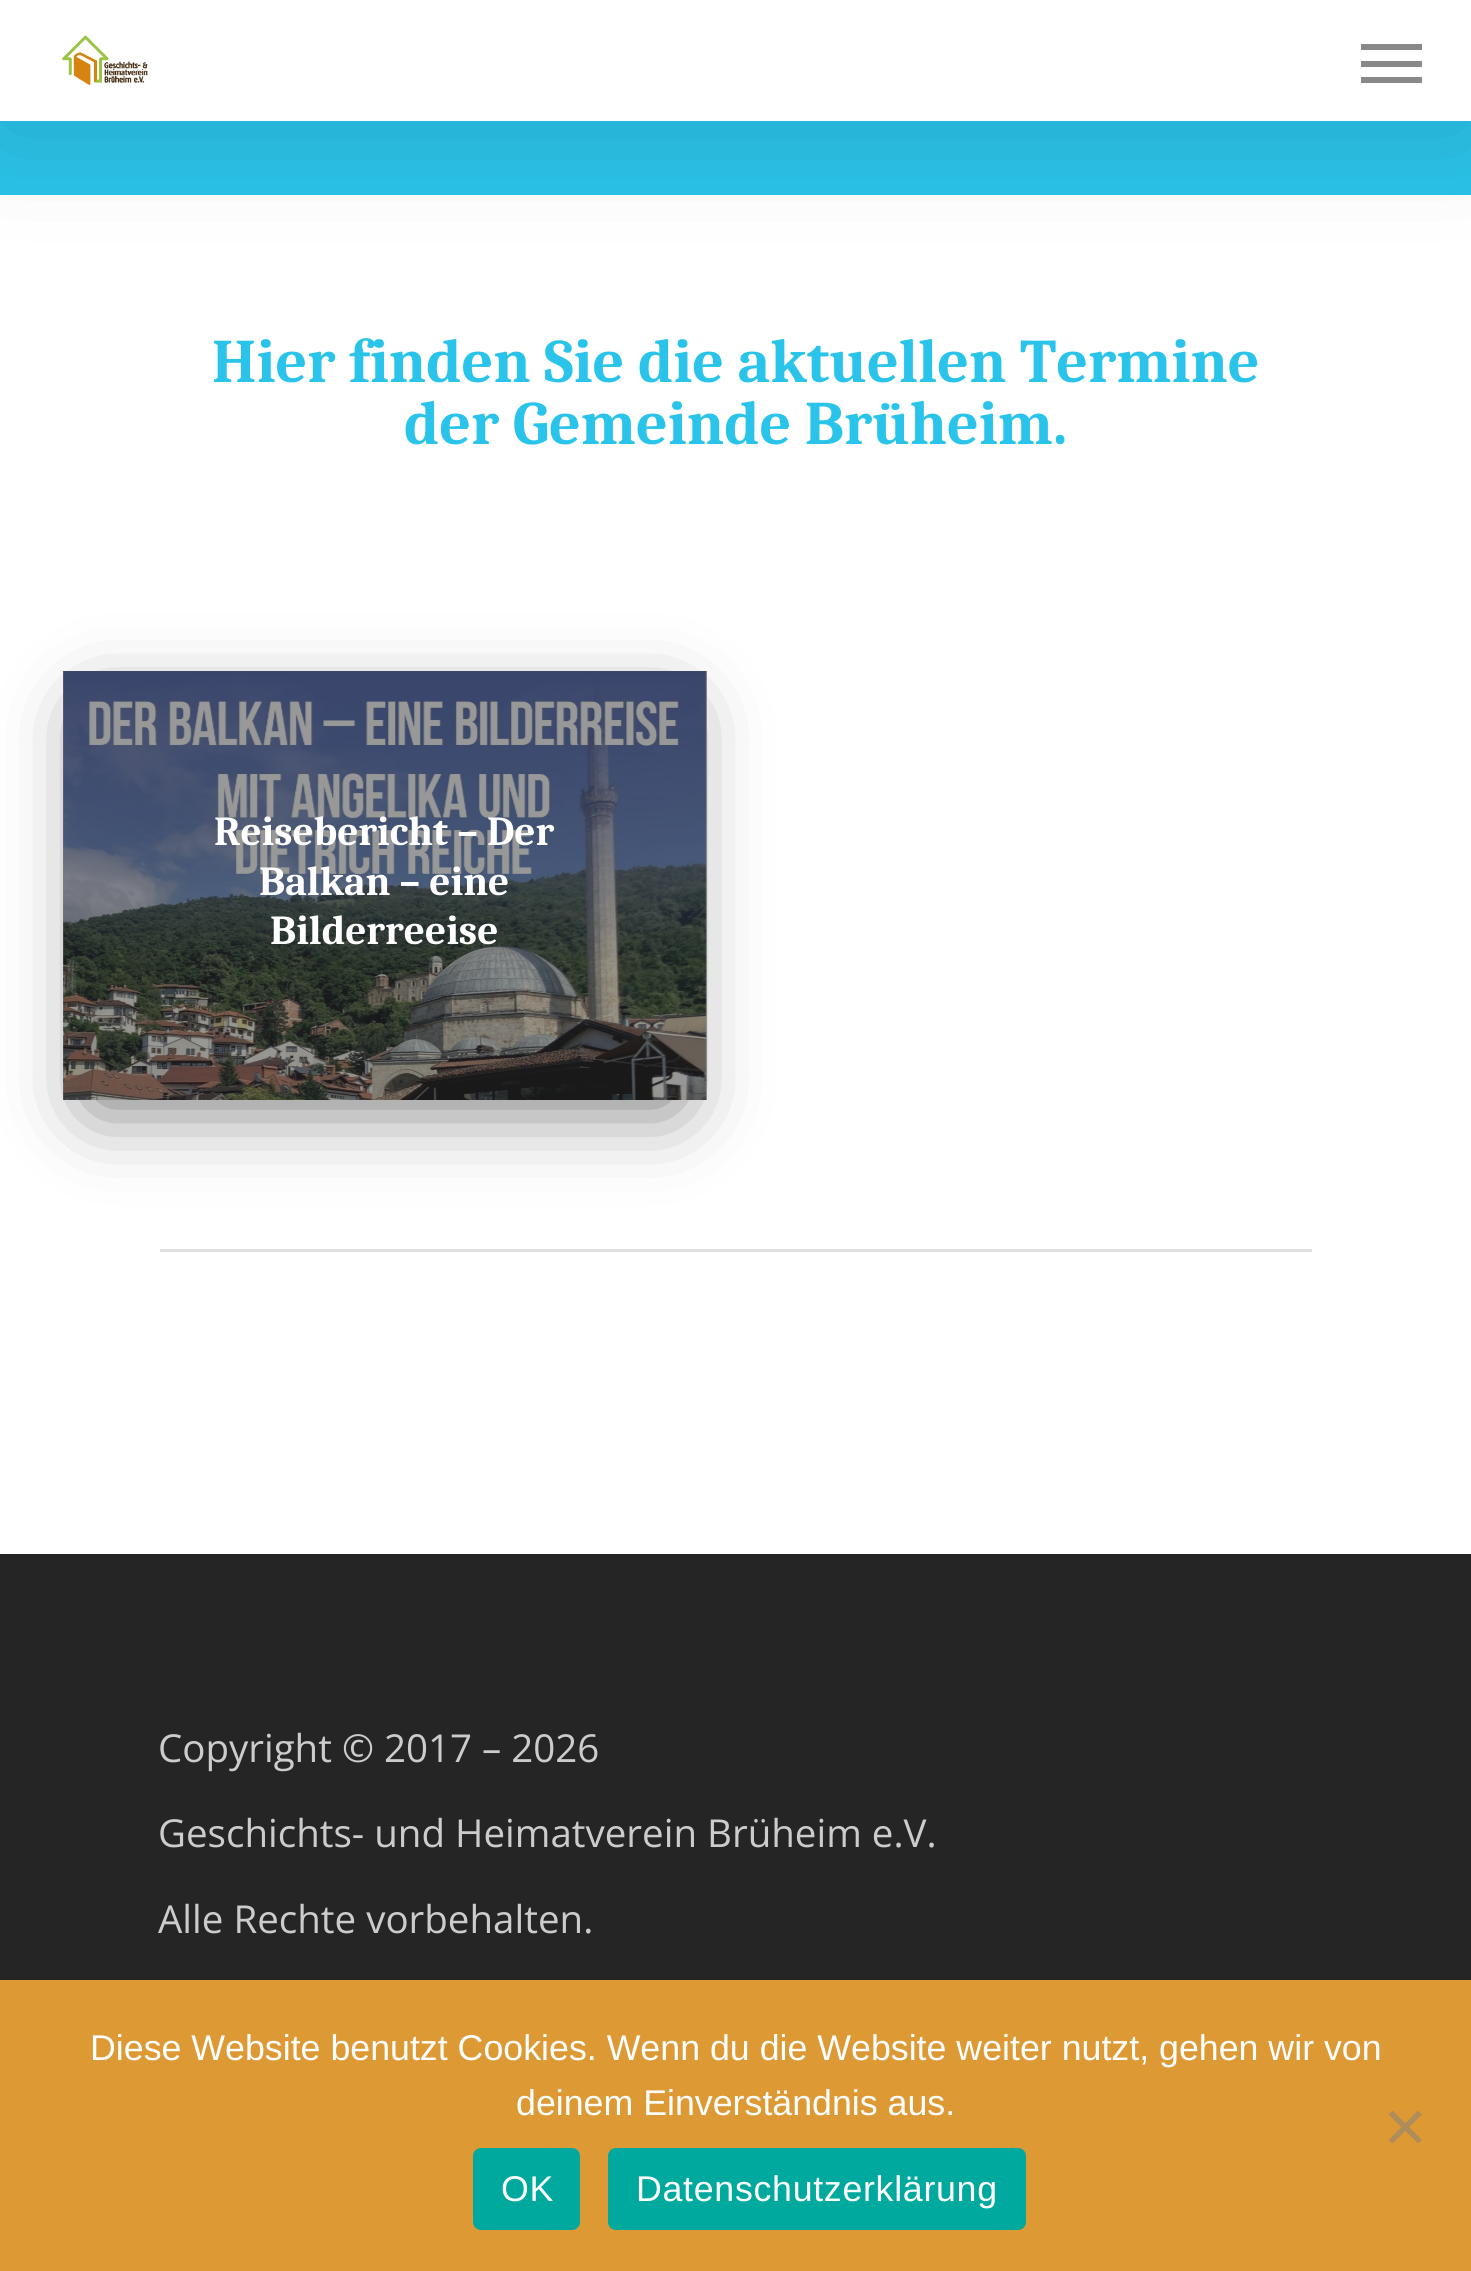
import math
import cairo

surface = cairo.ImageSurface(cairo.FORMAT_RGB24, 1471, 2271)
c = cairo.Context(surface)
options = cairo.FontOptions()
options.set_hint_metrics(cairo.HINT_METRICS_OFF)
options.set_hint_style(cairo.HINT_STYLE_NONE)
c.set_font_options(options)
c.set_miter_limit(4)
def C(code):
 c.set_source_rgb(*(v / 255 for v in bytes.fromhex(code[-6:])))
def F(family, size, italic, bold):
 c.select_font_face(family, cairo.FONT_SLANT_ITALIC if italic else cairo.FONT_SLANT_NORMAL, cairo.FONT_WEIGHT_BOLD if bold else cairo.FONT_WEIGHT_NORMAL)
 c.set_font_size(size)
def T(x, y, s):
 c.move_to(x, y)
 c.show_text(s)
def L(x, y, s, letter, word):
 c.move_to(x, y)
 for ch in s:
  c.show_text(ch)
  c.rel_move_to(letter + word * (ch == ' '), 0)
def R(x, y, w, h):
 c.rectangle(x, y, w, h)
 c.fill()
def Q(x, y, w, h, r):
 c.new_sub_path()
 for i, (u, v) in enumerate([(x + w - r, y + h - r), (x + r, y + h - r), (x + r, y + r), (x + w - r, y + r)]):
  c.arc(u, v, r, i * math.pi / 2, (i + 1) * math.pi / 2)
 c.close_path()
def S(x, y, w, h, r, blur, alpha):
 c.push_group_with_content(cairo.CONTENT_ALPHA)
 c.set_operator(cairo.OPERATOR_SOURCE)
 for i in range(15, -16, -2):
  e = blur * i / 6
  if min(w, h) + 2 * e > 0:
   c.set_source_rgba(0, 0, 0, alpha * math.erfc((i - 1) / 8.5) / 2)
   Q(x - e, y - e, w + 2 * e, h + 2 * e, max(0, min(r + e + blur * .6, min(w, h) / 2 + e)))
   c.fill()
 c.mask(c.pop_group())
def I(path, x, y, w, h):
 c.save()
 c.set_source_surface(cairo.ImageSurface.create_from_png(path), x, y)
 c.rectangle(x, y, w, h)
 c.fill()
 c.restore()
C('ffffff')
c.paint()
C('2ac4ea')
R(0,121,1471,74)
C('000000')
S(0,8,1471,121,0,62,.15)
C('ffffff')
R(0,0,1471,121)
I('1.png',62,35,86,50)
C('888888')
R(1361,44,61,6)
R(1361,77,61,6)
R(1361,61,61,6)
F('Caladea',61.9,0,1)
C('2ac4ea')
T(212,382,'Hier finden Sie die aktuellen Termine')
T(404,444,'der Gemeinde Brüheim.')
C('000000')
S(94,715,580,388,0,41,.6)
I('2.png',63,671,644,429)
c.set_source_rgba(0.2,0.2,0.2,0.5)
R(63,671,644,429)
F('Caladea',41.25,0,1)
C('ffffff')
T(214,845,'Reisebericht – Der')
T(259,895,'Balkan – eine')
T(270,944,'Bilderreeise')
C('e0e0e0')
R(160,1249,1152,3)
C('252525')
R(0,1554,1471,426)
F('Open Sans',38.5,0,0)
C('cccccc')
T(158,1762,'Copyright © 2017 – 2026')
T(158,1847,'Geschichts- und Heimatverein Brüheim e.V.')
T(158,1933,'Alle Rechte vorbehalten.')
C('dd9933')
R(0,1980,1471,291)
F('Liberation Sans',35.75,0,0)
C('ffffff')
T(90,2060,'Diese Website benutzt Cookies. Wenn du die Website weiter nutzt, gehen wir von')
T(516,2115,'deinem Einverständnis aus.')
C('af8d5a')
c.new_path()
c.move_to(1418,2110.5)
c.line_to(1422,2114.5)
c.line_to(1392.5,2143.5)
c.line_to(1388.5,2140)
c.close_path()
c.fill()
c.new_path()
c.move_to(1388.5,2114.5)
c.line_to(1392.5,2110.5)
c.line_to(1422,2140)
c.line_to(1418,2143.5)
c.close_path()
c.fill()
C('00a99d')
Q(473,2148,107,82,8)
c.fill()
C('ffffff')
L(501,2201,'OK',.7,0)
C('00a99d')
Q(608,2148,418,82,8)
c.fill()
C('ffffff')
L(636,2201,'Datenschutzerklärung',.7,0)
surface.write_to_png('o.png')
